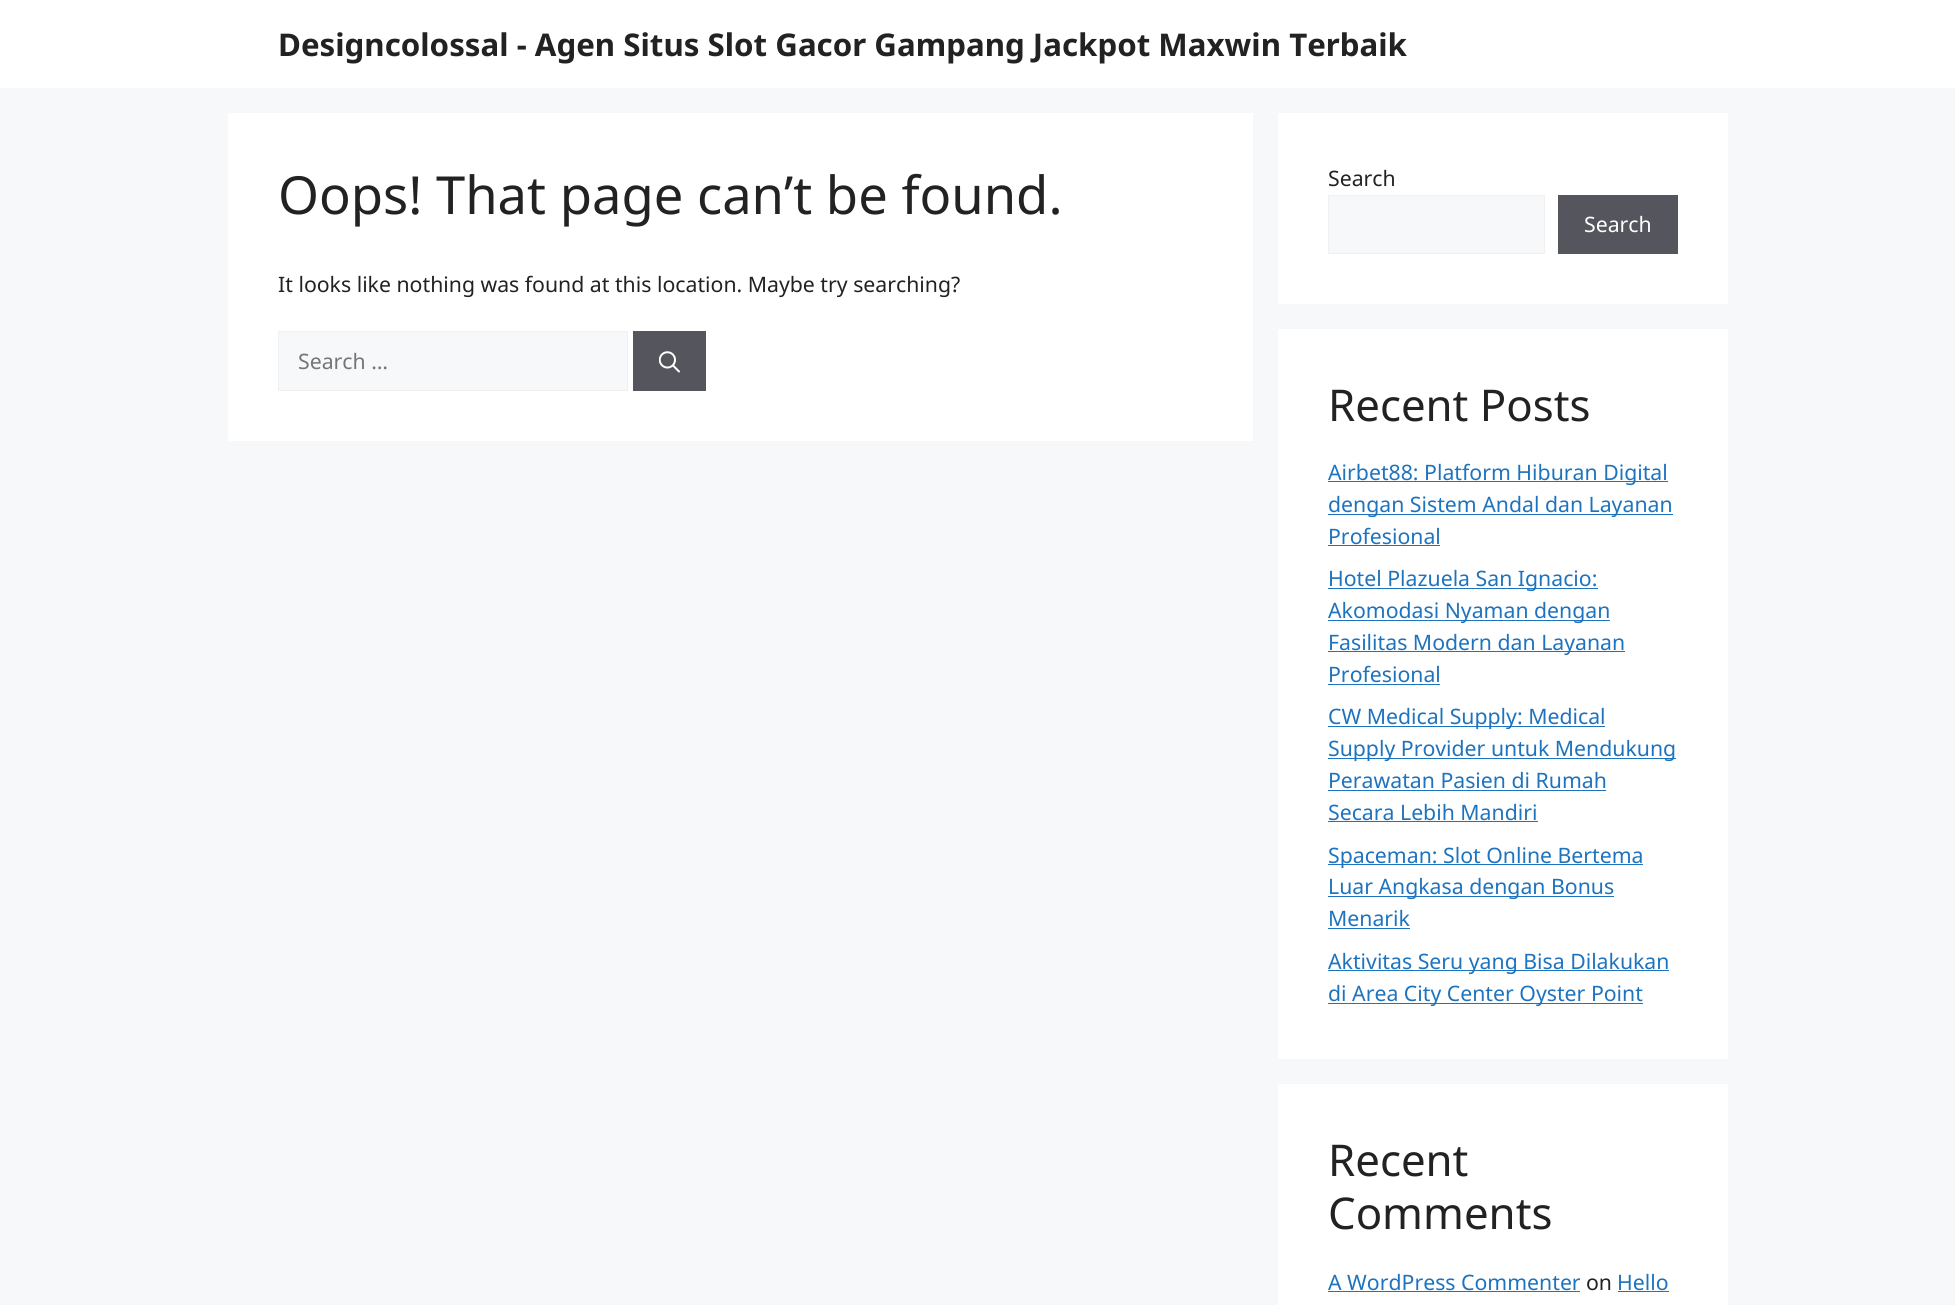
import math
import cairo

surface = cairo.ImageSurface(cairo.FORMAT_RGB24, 1955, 1305)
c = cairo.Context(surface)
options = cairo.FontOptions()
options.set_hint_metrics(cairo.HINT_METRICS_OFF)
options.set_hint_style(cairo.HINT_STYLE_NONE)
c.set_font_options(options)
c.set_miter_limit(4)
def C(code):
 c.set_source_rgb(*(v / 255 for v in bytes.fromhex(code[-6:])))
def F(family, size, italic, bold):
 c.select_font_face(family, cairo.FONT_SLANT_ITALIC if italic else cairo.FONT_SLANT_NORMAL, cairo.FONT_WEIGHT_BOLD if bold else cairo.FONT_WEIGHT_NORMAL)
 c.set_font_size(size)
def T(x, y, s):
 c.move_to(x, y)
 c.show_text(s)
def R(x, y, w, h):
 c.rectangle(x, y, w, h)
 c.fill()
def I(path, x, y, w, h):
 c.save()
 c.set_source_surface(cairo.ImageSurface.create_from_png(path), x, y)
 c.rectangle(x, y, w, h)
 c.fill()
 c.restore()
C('f7f8f9')
c.paint()
C('ffffff')
R(0,0,1955,88)
F('Noto Sans',31.25,0,1)
C('222222')
T(278,56,'Designcolossal - Agen Situs Slot Gacor Gampang Jackpot Maxwin Terbaik')
C('ffffff')
R(228,113,1025,328)
F('Noto Sans',52.5,0,0)
C('222222')
T(278,214,'Oops! That page can’t be found.')
F('Noto Sans',21.25,0,0)
T(278,292,'It looks like nothing was found at this location. Maybe try searching?')
C('f7f8f9')
c.rectangle(278.5,331.5,349,59)
c.fill_preserve()
C('f0f0f0')
c.set_line_width(1)
c.stroke()
C('757575')
T(298,369,'Search …')
C('55555e')
R(633,331,73,60)
I('1.png',659,351,21,22)
C('ffffff')
R(1278,113,450,191)
C('222222')
T(1328,186,'Search')
C('f7f8f9')
c.rectangle(1328.5,195.5,216,58)
c.fill_preserve()
C('f0f0f0')
c.stroke()
C('55555e')
R(1558,195,120,59)
C('ffffff')
T(1584,232,'Search')
R(1278,329,450,730)
F('Noto Sans',43.75,0,0)
C('222222')
T(1328,421,'Recent Posts')
C('1e73be')
R(1328,481,340,1)
F('Noto Sans',21.25,0,0)
T(1328,480,'Airbet88: Platform Hiburan Digital')
R(1328,514,345,1)
T(1328,512,'dengan Sistem Andal dan Layanan')
T(1328,544,'Profesional')
R(1328,545,112,1)
R(1328,588,270,1)
T(1328,586,'Hotel Plazuela San Ignacio:')
R(1328,620,282,1)
T(1328,618,'Akomodasi Nyaman dengan')
R(1328,651,297,1)
T(1328,650,'Fasilitas Modern dan Layanan')
T(1328,682,'Profesional')
R(1328,684,112,1)
R(1328,726,277,1)
T(1328,724,'CW Medical Supply: Medical')
R(1328,758,348,1)
T(1328,756,'Supply Provider untuk Mendukung')
T(1328,788,'Perawatan Pasien di Rumah')
R(1328,790,278,1)
T(1328,820,'Secara Lebih Mandiri')
R(1328,821,210,1)
R(1328,864,315,1)
T(1328,863,'Spaceman: Slot Online Bertema')
R(1328,896,286,1)
T(1328,894,'Luar Angkasa dengan Bonus')
T(1328,926,'Menarik')
R(1328,928,82,1)
R(1328,970,341,1)
T(1328,969,'Aktivitas Seru yang Bisa Dilakukan')
R(1328,1003,315,1)
T(1328,1001,'di Area City Center Oyster Point')
C('ffffff')
R(1278,1084,450,221)
F('Noto Sans',43.75,0,0)
C('222222')
T(1328,1176,'Recent')
T(1328,1229,'Comments')
F('Noto Sans',21.25,0,0)
C('1e73be')
T(1328,1290,'A WordPress Commenter')
R(1328,1291,252,1)
C('222222')
T(1586,1290,'on')
C('1e73be')
T(1617,1290,'Hello')
R(1618,1291,51,1)
surface.write_to_png('o.png')
